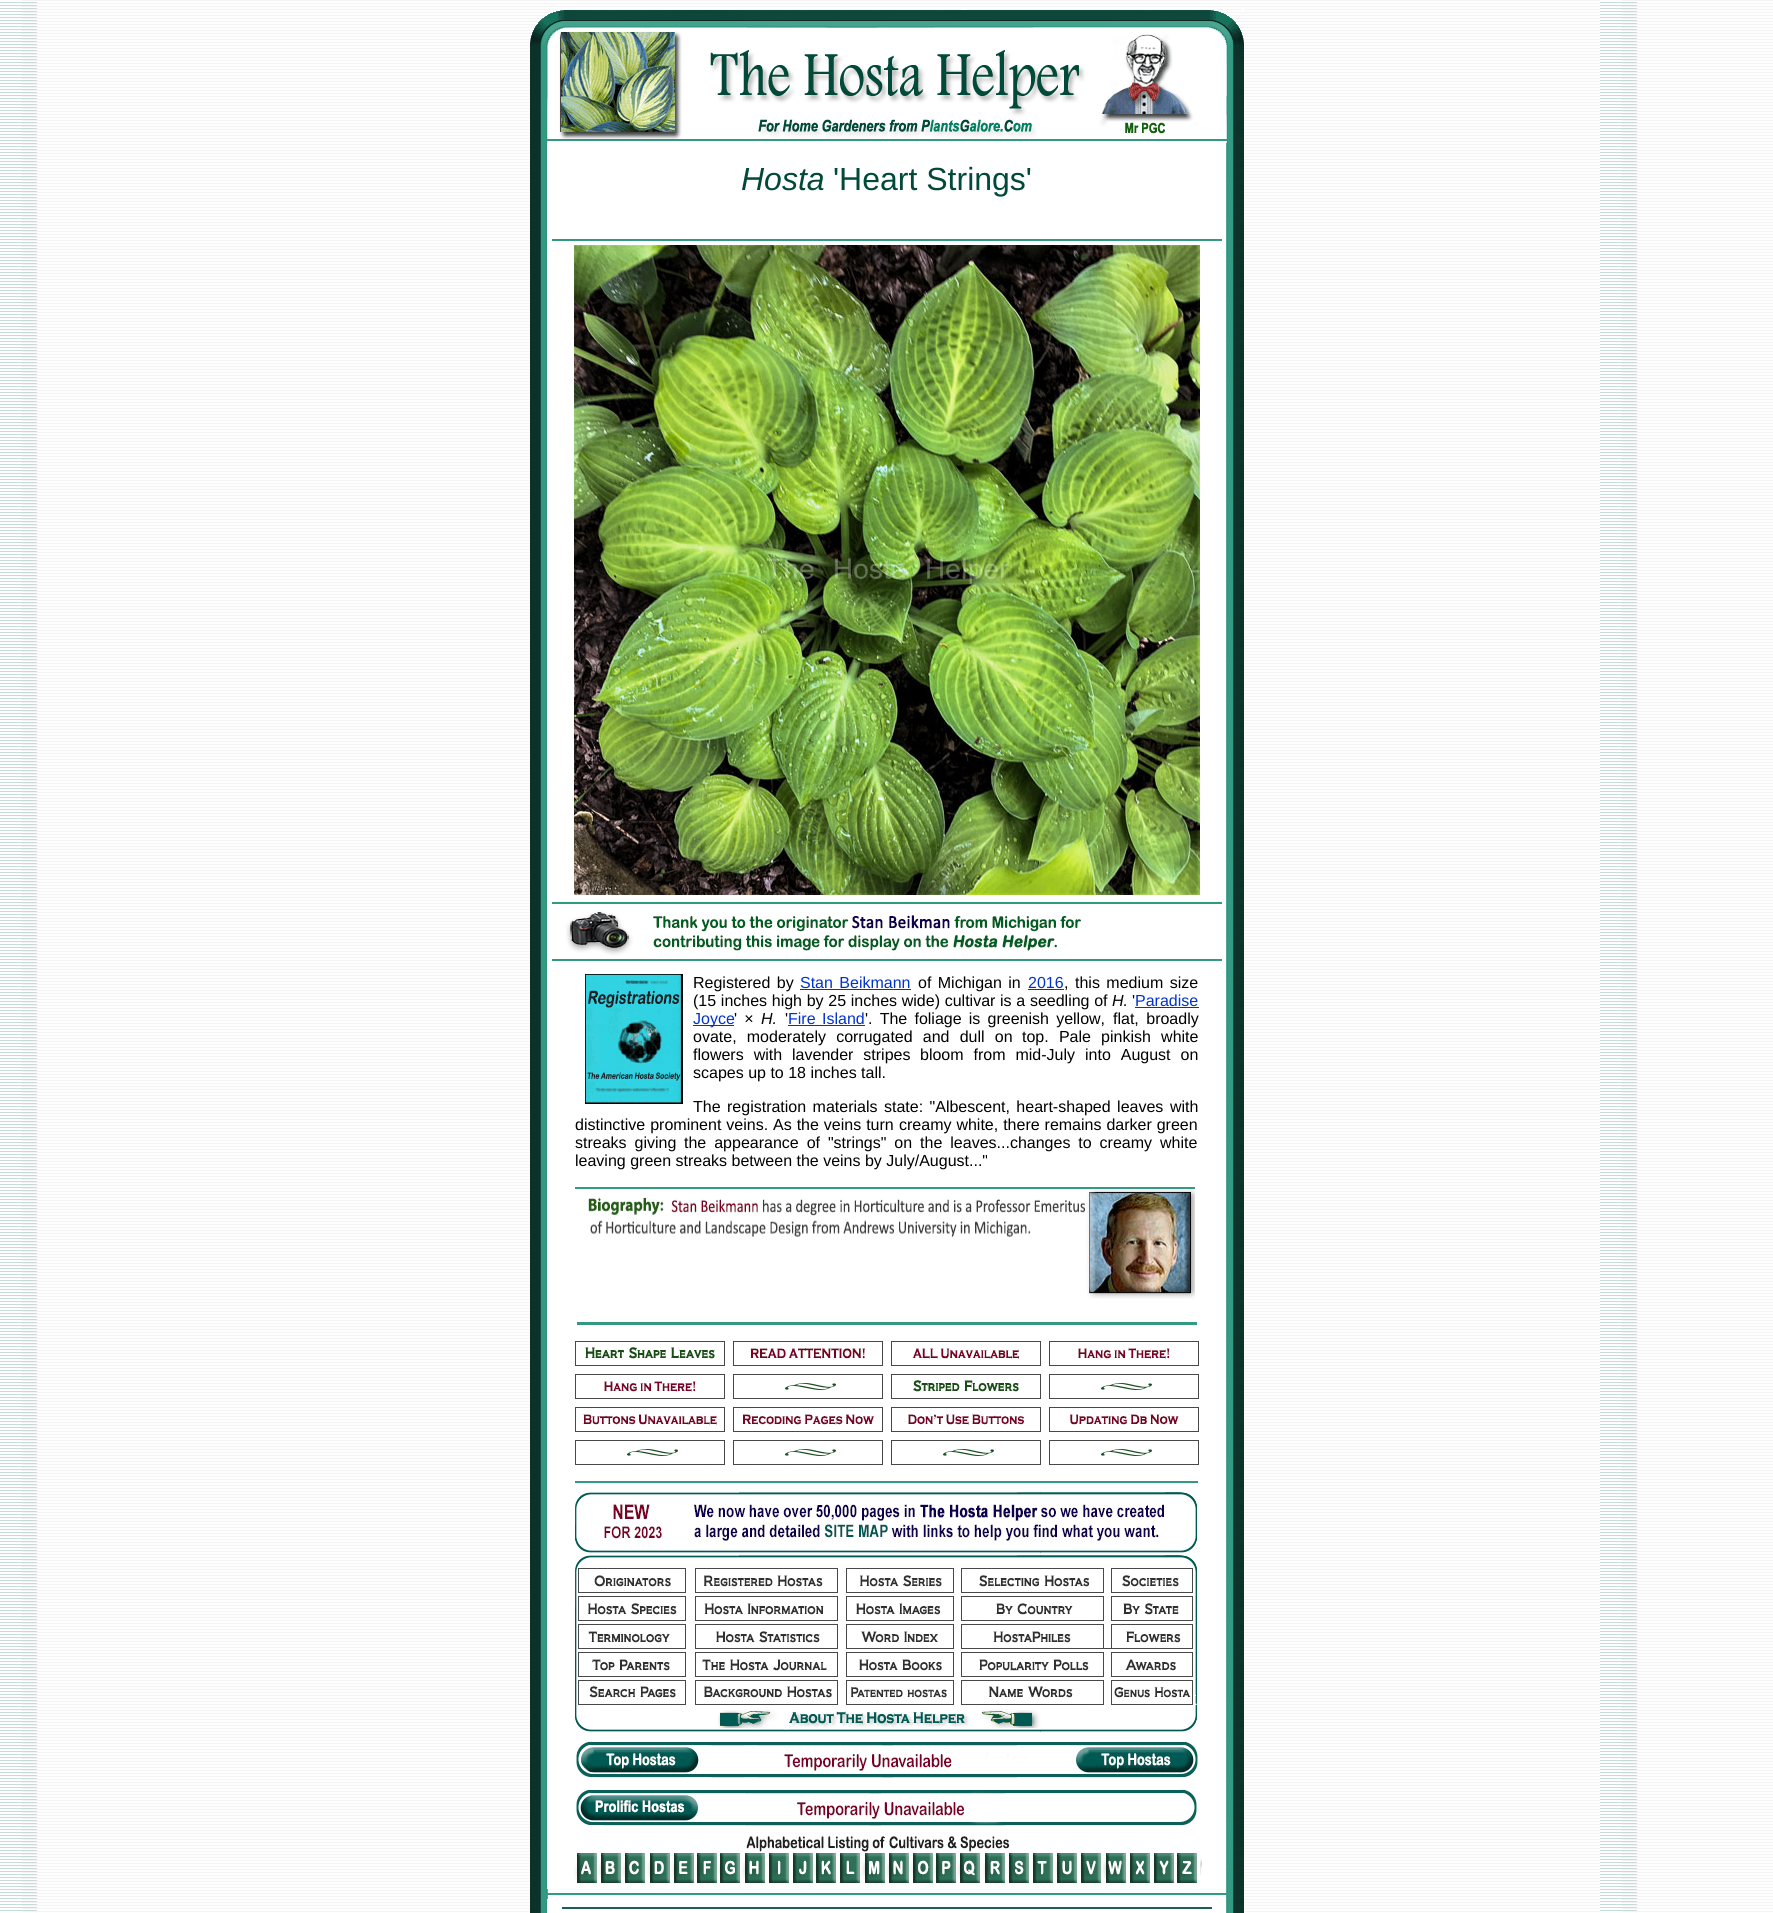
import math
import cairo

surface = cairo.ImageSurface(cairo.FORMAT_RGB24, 1773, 1913)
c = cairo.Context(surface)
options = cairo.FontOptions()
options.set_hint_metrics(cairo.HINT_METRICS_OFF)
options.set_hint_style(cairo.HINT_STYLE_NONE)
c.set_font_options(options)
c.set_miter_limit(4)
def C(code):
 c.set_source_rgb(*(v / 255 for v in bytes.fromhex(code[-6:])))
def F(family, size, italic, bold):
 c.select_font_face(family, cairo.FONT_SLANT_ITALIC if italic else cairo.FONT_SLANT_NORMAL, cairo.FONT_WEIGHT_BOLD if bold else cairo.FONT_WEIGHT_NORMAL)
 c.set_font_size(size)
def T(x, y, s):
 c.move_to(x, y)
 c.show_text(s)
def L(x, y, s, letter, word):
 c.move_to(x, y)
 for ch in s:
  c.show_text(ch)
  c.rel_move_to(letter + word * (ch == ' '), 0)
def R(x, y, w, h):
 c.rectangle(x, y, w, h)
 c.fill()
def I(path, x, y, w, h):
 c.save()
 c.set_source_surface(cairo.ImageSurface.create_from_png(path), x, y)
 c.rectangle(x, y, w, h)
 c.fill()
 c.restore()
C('ffffff')
c.paint()
I('1.png',0,0,1773,1913)
I('2.png',530,9,714,134)
I('3.png',530,143,714,1688)
F('Liberation Sans',32,1,0)
C('014938')
T(741,190,'Hosta')
F('Liberation Sans',32,0,0)
T(833,190,'\'Heart Strings\'')
C('349982')
R(552,239,670,2)
I('4.png',574,245,626,650)
I('5.png',552,902,670,59)
I('6.png',585,974,98,130)
F('Liberation Sans',16,0,0)
C('000000')
L(693,988,'Registered by',0,2)
C('0033cc')
L(800,988,'Stan Beikmann',0,2)
R(800,989,111,1)
C('000000')
L(918,988,'of Michigan in',0,2)
C('0033cc')
T(1028,988,'2016')
R(1028,989,36,1)
C('000000')
T(1064,988,',')
L(1075,988,'this medium size',0,2)
L(693,1006,'(15 inches high by 25 inches wide) cultivar is a seedling of',0,.25)
F('Liberation Sans',16,1,0)
T(1112,1006,'H.')
F('Liberation Sans',16,0,0)
T(1132,1006,'\'')
C('0033cc')
T(1135,1006,'Paradise')
R(1135,1007,64,1)
R(693,1025,41,1)
T(693,1024,'Joyce')
C('000000')
L(734,1024,'\' ×',0,2.75)
F('Liberation Sans',16,1,0)
T(761,1024,'H.')
F('Liberation Sans',16,0,0)
T(785,1024,'\'')
C('0033cc')
T(788,1024,'Fire')
R(788,1025,77,1)
T(822,1024,'Island')
C('000000')
L(865,1024,'\'. The foliage is greenish yellow,',0,2.75)
L(1113,1024,'flat, broadly',0,3)
L(693,1042,'ovate, moderately corrugated and dull on',0,5.75)
L(1022,1042,'top. Pale pinkish white',0,5.75)
L(693,1060,'flowers with lavender stripes',0,5.5)
L(920,1060,'bloom from mid-July into August on',0,5.5)
T(693,1078,'scapes up to 18 inches tall.')
T(693,1112,'The')
L(727,1112,'registration materials state: "Albescent, heart-shaped leaves',0,2)
T(1170,1112,'with')
L(575,1130,'distinctive prominent veins. As the veins turn',0,.5)
L(899,1130,'creamy white, there remains darker green',0,.5)
L(575,1148,'streaks giving',0,3.5)
L(684,1148,'the appearance of "strings" on the leaves...changes to creamy white',0,3.5)
T(575,1166,'leaving green streaks between the veins by July/August..."')
I('7.png',575,1187,620,112)
C('349982')
R(577,1322,620,3)
I('8.png',575,1341,150,25)
I('9.png',733,1341,150,25)
I('10.png',891,1341,150,25)
I('11.png',1049,1341,150,25)
I('11.png',575,1374,150,25)
I('12.png',733,1374,150,25)
I('13.png',891,1374,150,25)
I('12.png',1049,1374,150,25)
I('14.png',575,1407,150,25)
I('15.png',733,1407,150,25)
I('16.png',891,1407,150,25)
I('17.png',1049,1407,150,25)
I('12.png',575,1440,150,25)
I('12.png',733,1440,150,25)
I('12.png',891,1440,150,25)
I('12.png',1049,1440,150,25)
I('18.png',575,1481,623,251)
I('19.png',576,1741,622,37)
I('20.png',576,1789,621,37)
I('21.png',530,1831,714,58)
I('22.png',574,1836,628,48)
I('23.png',530,1889,714,10)
I('24.png',546,1889,682,10)
I('25.png',530,1899,714,14)
C('1c5e55')
R(562,1907,650,2)
surface.write_to_png('o.png')
